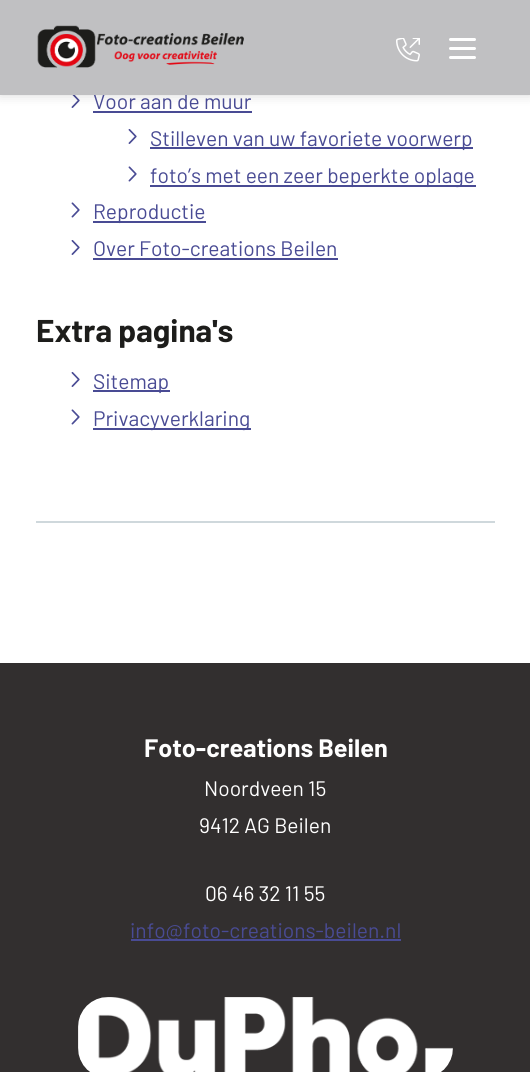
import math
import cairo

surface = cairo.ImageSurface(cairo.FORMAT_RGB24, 530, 1072)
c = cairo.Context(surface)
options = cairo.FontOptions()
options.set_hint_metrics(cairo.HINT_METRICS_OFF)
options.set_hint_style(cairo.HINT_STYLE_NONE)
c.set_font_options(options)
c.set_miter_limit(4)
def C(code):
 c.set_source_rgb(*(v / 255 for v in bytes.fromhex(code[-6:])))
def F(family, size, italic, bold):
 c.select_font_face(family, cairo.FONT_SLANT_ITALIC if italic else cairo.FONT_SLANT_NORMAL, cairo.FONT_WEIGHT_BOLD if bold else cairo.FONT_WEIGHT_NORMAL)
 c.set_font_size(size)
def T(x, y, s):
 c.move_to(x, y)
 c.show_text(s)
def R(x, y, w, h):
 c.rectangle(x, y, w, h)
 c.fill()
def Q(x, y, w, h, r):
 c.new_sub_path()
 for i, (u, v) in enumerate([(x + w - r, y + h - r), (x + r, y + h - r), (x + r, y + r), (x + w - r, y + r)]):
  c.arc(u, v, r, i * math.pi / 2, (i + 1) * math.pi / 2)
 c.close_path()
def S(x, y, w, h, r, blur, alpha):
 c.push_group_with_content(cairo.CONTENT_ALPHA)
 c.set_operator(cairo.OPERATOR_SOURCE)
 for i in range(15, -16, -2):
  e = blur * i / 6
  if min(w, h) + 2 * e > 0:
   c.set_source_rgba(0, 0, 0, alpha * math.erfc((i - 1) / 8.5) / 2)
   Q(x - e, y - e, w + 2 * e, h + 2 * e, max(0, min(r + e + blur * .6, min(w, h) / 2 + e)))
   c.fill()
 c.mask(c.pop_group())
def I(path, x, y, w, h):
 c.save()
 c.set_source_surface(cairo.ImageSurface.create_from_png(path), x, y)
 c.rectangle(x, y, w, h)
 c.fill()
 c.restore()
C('ffffff')
c.paint()
I('3.png',71,95,9,13)
C('494b94')
R(93,111,159,2)
C('000000')
S(0,0,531,95,0,6,.15)
F('Barlow',21,0,0)
C('494b94')
T(93,109,'Voor aan de muur')
C('c0c0c2')
R(0,0,530,95)
I('1.png',37,25,207,43)
I('2.png',396,38,24,24)
C('ffffff')
Q(449,47,27,3,1.5)
c.fill()
Q(449,38,27,3,1.5)
c.fill()
Q(449,56,27,3,1.5)
c.fill()
I('4.png',128,129,9,15)
C('494b94')
R(150,147,323,2)
T(150,146,'Stilleven van uw favoriete voorwerp')
I('5.png',128,166,9,16)
R(150,185,326,2)
T(150,183,'foto’s met een zeer beperkte oplage')
I('5.png',71,202,9,16)
R(93,221,113,2)
T(93,219,'Reproductie')
I('4.png',71,240,9,15)
T(93,256,'Over Foto-creations Beilen')
R(93,258,245,2)
F('Barlow',31.5,0,1)
C('1d1d1b')
T(36,342,'Extra pagina\'s')
I('4.png',71,372,9,15)
C('494b94')
R(93,390,77,2)
F('Barlow',21,0,0)
T(93,389,'Sitemap')
I('5.png',71,409,9,16)
R(93,428,158,2)
T(93,426,'Privacyverklaring')
C('cfd8dc')
R(36,521,459,2)
C('322f2f')
R(0,663,530,409)
F('Barlow',25.25,0,1)
C('ffffff')
T(144,757,'Foto-creations Beilen')
F('Barlow',21,0,0)
T(204,796,'Noordveen 15')
T(199,833,'9412 AG Beilen')
T(205,901,'06 46 32 11 55')
C('494b94')
R(131,939,270,2)
T(130,938,'info@foto-creations-beilen.nl')
I('6.png',78,997,375,75)
surface.write_to_png('o.png')
